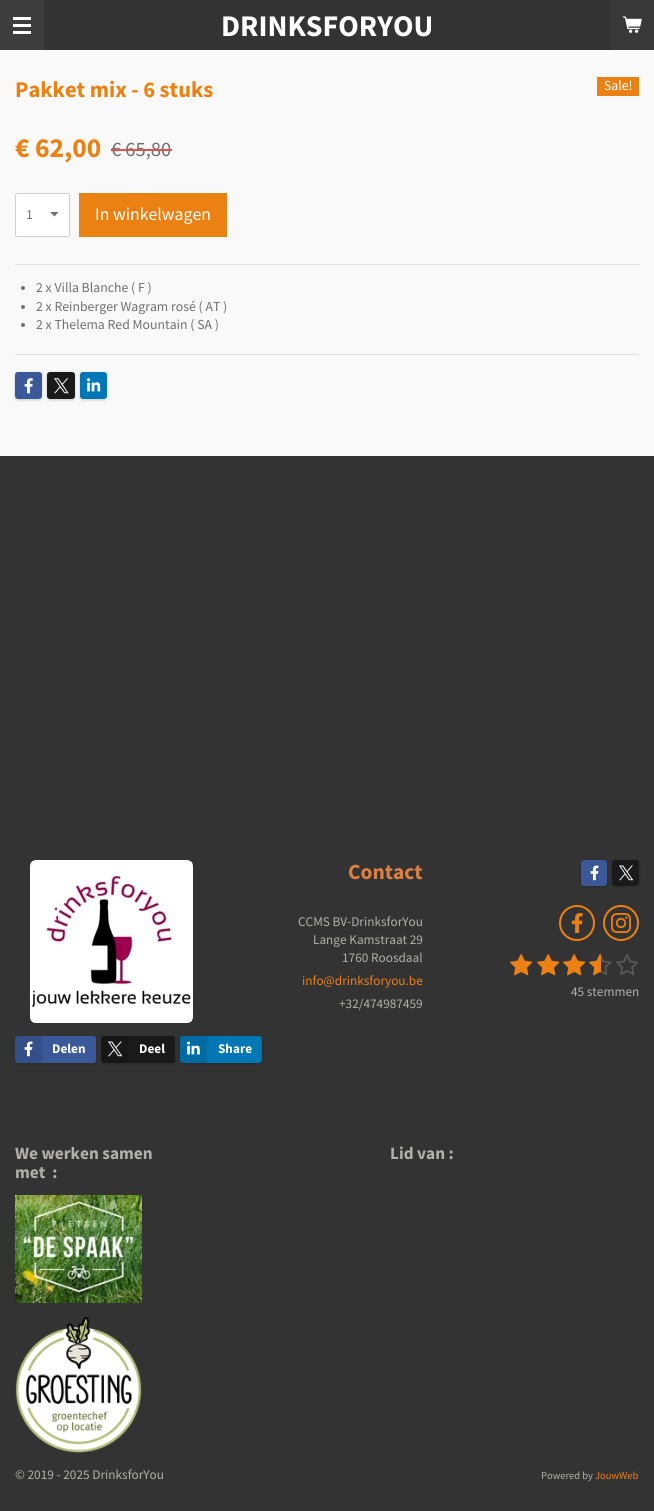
import math
import cairo

surface = cairo.ImageSurface(cairo.FORMAT_RGB24, 654, 1511)
c = cairo.Context(surface)
options = cairo.FontOptions()
options.set_hint_metrics(cairo.HINT_METRICS_OFF)
options.set_hint_style(cairo.HINT_STYLE_NONE)
c.set_font_options(options)
c.set_miter_limit(4)
def C(code):
 c.set_source_rgb(*(v / 255 for v in bytes.fromhex(code[-6:])))
def F(family, size, italic, bold):
 c.select_font_face(family, cairo.FONT_SLANT_ITALIC if italic else cairo.FONT_SLANT_NORMAL, cairo.FONT_WEIGHT_BOLD if bold else cairo.FONT_WEIGHT_NORMAL)
 c.set_font_size(size)
def T(x, y, s):
 c.move_to(x, y)
 c.show_text(s)
def R(x, y, w, h):
 c.rectangle(x, y, w, h)
 c.fill()
def Q(x, y, w, h, r):
 c.new_sub_path()
 for i, (u, v) in enumerate([(x + w - r, y + h - r), (x + r, y + h - r), (x + r, y + r), (x + w - r, y + r)]):
  c.arc(u, v, r, i * math.pi / 2, (i + 1) * math.pi / 2)
 c.close_path()
def S(x, y, w, h, r, blur, alpha):
 c.push_group_with_content(cairo.CONTENT_ALPHA)
 c.set_operator(cairo.OPERATOR_SOURCE)
 for i in range(15, -16, -2):
  e = blur * i / 6
  if min(w, h) + 2 * e > 0:
   c.set_source_rgba(0, 0, 0, alpha * math.erfc((i - 1) / 8.5) / 2)
   Q(x - e, y - e, w + 2 * e, h + 2 * e, max(0, min(r + e + blur * .6, min(w, h) / 2 + e)))
   c.fill()
 c.mask(c.pop_group())
def I(path, x, y, w, h):
 c.save()
 c.set_source_surface(cairo.ImageSurface.create_from_png(path), x, y)
 c.rectangle(x, y, w, h)
 c.fill()
 c.restore()
C('333333')
c.paint()
C('3d3d3d')
R(0,0,44,50)
C('ffffff')
R(13,24,18,3)
R(13,17,18,3)
R(13,31,18,3)
F('Source Sans Pro',30,0,1)
T(221,36,'DRINKSFORYOU')
C('383838')
R(610,0,44,50)
I('1.png',623,16,19,17)
C('f9f9f9')
R(0,50,654,406)
F('Source Sans Pro',22.5,0,1)
C('eb8113')
T(15,97,'Pakket mix - 6 stuks')
R(597,77,42,19)
F('Source Sans Pro',13.75,0,0)
C('ffffff')
T(604,90,'Sale!')
F('Source Sans Pro',27.5,0,1)
C('eb8113')
T(15,157,'€ 62,00')
F('Source Sans Pro',20.5,0,0)
C('707070')
T(111,156,'€ 65,80')
C('d9534f')
R(111,149,61,2)
C('ffffff')
Q(15,193,55,44,2)
c.fill()
C('707070')
c.new_path()
c.move_to(54.5,216.5)
c.line_to(50,212)
c.line_to(58.5,212)
c.close_path()
c.fill()
Q(15.5,193.5,54,43,1.5)
C('cfcfcf')
c.set_line_width(1)
c.stroke()
F('Source Sans Pro',13.75,0,0)
C('707070')
T(26,219,'1')
C('eb8113')
R(79,193,148,44)
F('Source Sans Pro',17.75,0,0)
C('ffffff')
T(95,220,'In winkelwagen')
C('dedede')
R(15,264,624,1)
C('707070')
c.new_path()
c.arc(23,288,2,0,2 * math.pi)
c.fill()
F('Source Sans Pro',13.75,0,0)
T(36,292,'2 x Villa Blanche ( F )')
c.new_path()
c.arc(23,307,2,0,2 * math.pi)
c.fill()
T(36,311,'2 x Reinberger Wagram rosé ( AT )')
c.new_path()
c.arc(23,325,2,0,2 * math.pi)
c.fill()
T(36,329,'2 x Thelema Red Mountain ( SA )')
C('dedede')
R(15,354,624,1)
C('000000')
S(15,373,27,27,3,1.5,.2)
C('3b5998')
Q(15,372,27,27,3)
c.fill()
I('2.png',24,378,9,16)
C('000000')
S(47,373,28,27,3,1.5,.2)
C('1a1a1a')
Q(47,372,28,27,3)
c.fill()
I('3.png',54,378,15,16)
C('000000')
S(80,373,27,27,3,1.5,.2)
C('0077b5')
Q(80,372,27,27,3)
c.fill()
I('4.png',87,378,14,14)
I('5.png',30,860,163,163)
F('Source Sans Pro',21.5,0,1)
C('da8044')
T(348,879,'Contact')
F('Source Sans Pro',13.25,0,0)
C('b1b0ac')
T(298,926,'CCMS BV-DrinksforYou')
T(313,944,'Lange Kamstraat 29')
T(342,962,'1760 Roosdaal')
C('eb8113')
T(302,985,'info@drinksforyou.be')
C('b1b0ac')
T(339,1008,'+32/474987459')
C('000000')
S(581,861,26,26,3,1.5,.2)
C('3b5998')
Q(581,860,26,26,3)
c.fill()
I('6.png',590,865,9,16)
C('000000')
S(612,861,27,26,3,1.5,.2)
C('1a1a1a')
Q(612,860,27,26,3)
c.fill()
I('7.png',619,865,15,16)
c.arc(577,923,17,0,2 * math.pi)
C('eb8113')
c.set_line_width(2)
c.stroke()
I('8.png',571,913,12,20)
c.arc(621,923,17,0,2 * math.pi)
c.stroke()
I('9.png',611,913,20,20)
I('10.png',510,954,23,22)
I('10.png',537,954,23,22)
I('10.png',563,954,23,22)
I('11.png',589,954,12,22)
I('12.png',601,955,11,21)
I('13.png',616,954,23,22)
C('b1b0ac')
T(571,996,'45 stemmen')
C('000000')
S(15,1037,81,27,3,1.5,.2)
C('3b5998')
Q(15,1036,81,27,3)
c.fill()
c.set_source_rgba(0,0,0,0.1)
c.new_path()
c.move_to(18,1036)
c.line_to(42,1036)
c.line_to(42,1063)
c.line_to(18,1063)
c.curve_to(16.5,1063,15,1061.5,15,1060)
c.line_to(15,1039)
c.curve_to(15,1037.5,16.5,1036,18,1036)
c.close_path()
c.fill()
I('14.png',24,1041,9,16)
F('Source Sans Pro',13.25,0,1)
C('ffffff')
T(52,1053,'Delen')
C('000000')
S(101,1037,74,27,3,1.5,.2)
C('1a1a1a')
Q(101,1036,74,27,3)
c.fill()
c.set_source_rgba(0,0,0,0.1)
c.new_path()
c.move_to(104,1036)
c.line_to(128,1036)
c.line_to(128,1063)
c.line_to(104,1063)
c.curve_to(102.5,1063,101,1061.5,101,1060)
c.line_to(101,1039)
c.curve_to(101,1037.5,102.5,1036,104,1036)
c.close_path()
c.fill()
I('15.png',108,1041,15,16)
C('ffffff')
T(139,1053,'Deel')
C('000000')
S(180,1037,82,27,3,1.5,.2)
C('0077b5')
Q(180,1036,82,27,3)
c.fill()
c.set_source_rgba(0,0,0,0.1)
c.new_path()
c.move_to(183,1036)
c.line_to(207,1036)
c.line_to(207,1063)
c.line_to(183,1063)
c.curve_to(181.5,1063,180,1061.5,180,1060)
c.line_to(180,1039)
c.curve_to(180,1037.5,181.5,1036,183,1036)
c.close_path()
c.fill()
I('16.png',187,1041,13,14)
C('ffffff')
T(218,1053,'Share')
F('Source Sans Pro',17.25,0,1)
C('b1b0ac')
T(15,1159,'We werken samen')
T(15,1178,'met  :')
I('17.png',15,1195,127,108)
I('18.png',15,1317,127,136)
T(390,1159,'Lid van :')
F('Source Sans Pro',13.25,0,0)
T(15,1479,'© 2019 - 2025 DrinksforYou')
F('Source Sans Pro',10.5,0,0)
T(541,1479,'Powered by')
C('eb8113')
T(595,1479,'JouwWeb')
surface.write_to_png('o.png')
